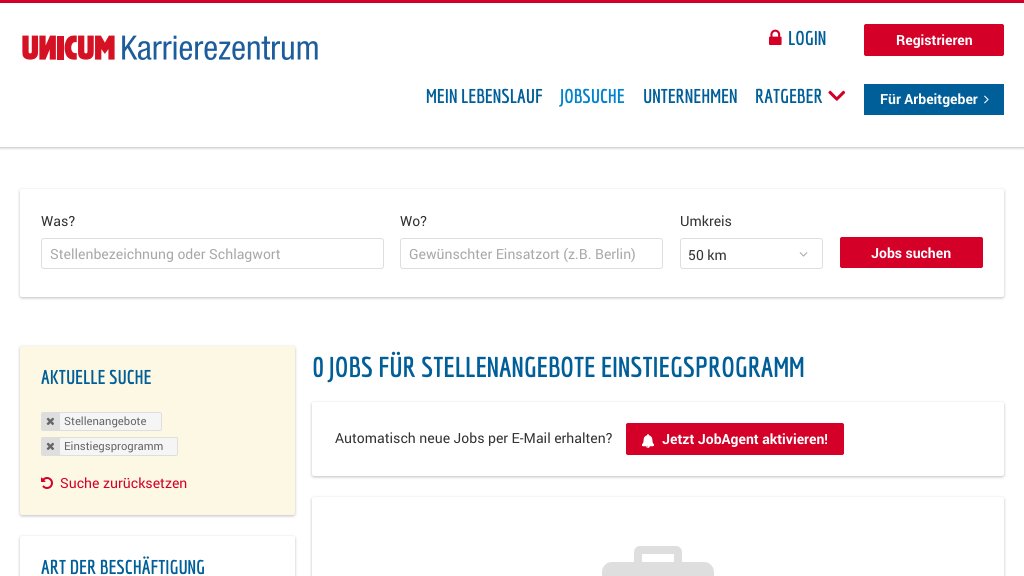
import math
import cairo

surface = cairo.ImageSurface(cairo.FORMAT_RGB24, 1024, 576)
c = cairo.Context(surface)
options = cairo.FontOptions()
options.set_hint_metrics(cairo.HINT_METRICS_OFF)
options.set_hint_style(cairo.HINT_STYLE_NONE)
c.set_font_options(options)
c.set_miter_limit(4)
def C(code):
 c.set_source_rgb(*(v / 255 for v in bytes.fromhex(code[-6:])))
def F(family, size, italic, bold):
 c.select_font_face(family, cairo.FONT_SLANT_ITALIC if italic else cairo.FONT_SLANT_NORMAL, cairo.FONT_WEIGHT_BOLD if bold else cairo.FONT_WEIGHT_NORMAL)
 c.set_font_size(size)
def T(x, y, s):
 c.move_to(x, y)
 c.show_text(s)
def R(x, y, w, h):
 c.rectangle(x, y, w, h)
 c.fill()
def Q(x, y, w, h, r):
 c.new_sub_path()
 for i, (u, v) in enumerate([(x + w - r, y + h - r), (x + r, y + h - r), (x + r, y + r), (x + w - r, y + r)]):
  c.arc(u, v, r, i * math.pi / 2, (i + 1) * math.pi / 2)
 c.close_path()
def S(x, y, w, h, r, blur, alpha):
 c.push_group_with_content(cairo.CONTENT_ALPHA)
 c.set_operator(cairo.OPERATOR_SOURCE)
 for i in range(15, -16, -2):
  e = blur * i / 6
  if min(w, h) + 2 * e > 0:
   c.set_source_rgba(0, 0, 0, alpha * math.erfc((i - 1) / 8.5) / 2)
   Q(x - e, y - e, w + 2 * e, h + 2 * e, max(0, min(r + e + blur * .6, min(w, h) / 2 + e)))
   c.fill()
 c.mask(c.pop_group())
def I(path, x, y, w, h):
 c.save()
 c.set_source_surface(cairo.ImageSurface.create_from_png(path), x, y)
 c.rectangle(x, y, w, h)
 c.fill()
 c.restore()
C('ffffff')
c.paint()
C('d40028')
R(0,0,1024,3)
c.save()
c.set_fill_rule(cairo.FILL_RULE_EVEN_ODD)
c.new_path()
c.move_to(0,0)
c.line_to(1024,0)
c.line_to(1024,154)
c.line_to(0,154)
c.close_path()
c.move_to(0,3)
c.line_to(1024,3)
c.line_to(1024,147)
c.line_to(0,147)
c.close_path()
c.clip()
C('000000')
S(0,4,1024,144,0,1.5,.25)
c.restore()
I('1.png',22,35,296,25)
I('2.png',769,29,13,16)
F('Economica',19.5,0,1)
C('005e98')
T(788,45,'LOGIN')
C('d40028')
Q(864.5,24.5,139,31,1.5)
c.fill_preserve()
c.set_line_width(1)
c.stroke()
F('Roboto',14,0,1)
C('ffffff')
T(896,45,'Registrieren')
F('Economica',19.5,0,1)
C('005e98')
T(426,103,'MEIN LEBENSLAUF')
C('0083ce')
T(560,103,'JOBSUCHE')
C('005e98')
T(643,103,'UNTERNEHMEN')
T(755,103,'RATGEBER')
I('3.png',828,90,18,11)
R(864,84,140,31)
F('Roboto',14,0,1)
C('ffffff')
T(880,104,'Für Arbeitgeber')
I('4.png',984,95,5,9)
C('000000')
S(20,190,984,108,2,1.5,.25)
C('ffffff')
Q(20,189,984,108,2)
c.fill()
F('Roboto',14,0,0)
C('333333')
T(41,226,'Was?')
Q(41.5,238.5,342,30,2.5)
C('dedede')
c.stroke()
C('a8a8a8')
T(50,259,'Stellenbezeichnung oder Schlagwort')
C('333333')
T(400,226,'Wo?')
Q(400.5,238.5,262,30,2.5)
C('dedede')
c.stroke()
C('a8a8a8')
T(409,259,'Gewünschter Einsatzort (z.B. Berlin)')
C('333333')
T(680,226,'Umkreis')
Q(680.5,238.5,142,30,2.5)
C('dedede')
c.stroke()
C('333333')
T(688,260,'50 km')
I('5.png',799,252,9,5)
C('d40028')
Q(840.5,237.5,142,30,1.5)
c.fill_preserve()
c.stroke()
F('Roboto',14,0,1)
C('ffffff')
T(871,258,'Jobs suchen')
C('000000')
S(20,347,275,169,2,1.5,.25)
C('fcf8e3')
Q(20,346,275,169,2)
c.fill()
F('Economica',19.5,0,1)
C('005e98')
T(41,384,'AKTUELLE SUCHE')
C('f5f5f5')
Q(41.5,412.5,120,18,1.5)
c.fill_preserve()
C('dedede')
c.stroke()
R(42,413,18,17)
I('6.png',46,417,8,8)
F('Roboto',11.25,0,0)
C('666666')
T(64,425,'Stellenangebote')
C('f5f5f5')
Q(41.5,437.5,136,18,1.5)
c.fill_preserve()
C('dedede')
c.stroke()
R(42,438,18,17)
I('6.png',46,442,8,8)
C('666666')
T(64,450,'Einstiegsprogramm')
I('7.png',41,477,12,12)
F('Roboto',14,0,0)
C('d40028')
T(60,488,'Suche zurücksetzen')
C('000000')
S(20,537,275,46,2,1.5,.25)
C('ffffff')
Q(20,536,275,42,2)
c.fill()
F('Economica',19.5,0,1)
C('005e98')
T(41,574,'ART DER BESCHÄFTIGUNG')
F('Economica',28,0,1)
T(312,377,'0 JOBS FÜR STELLENANGEBOTE EINSTIEGSPROGRAMM')
C('000000')
S(312,403,692,74,2,1.5,.25)
C('ffffff')
Q(312,402,692,74,2)
c.fill()
F('Roboto',14,0,0)
C('333333')
T(335,443,'Automatisch neue Jobs per E-Mail erhalten?')
C('d40028')
Q(626.5,423.5,217,31,1.5)
c.fill_preserve()
c.stroke()
I('8.png',641,434,13,14)
F('Roboto',14,0,1)
C('ffffff')
T(662,444,'Jetzt JobAgent aktivieren!')
C('000000')
S(312,498,692,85,2,1.5,.25)
C('ffffff')
Q(312,497,692,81,2)
c.fill()
I('9.png',602,546,112,30)
surface.write_to_png('o.png')
